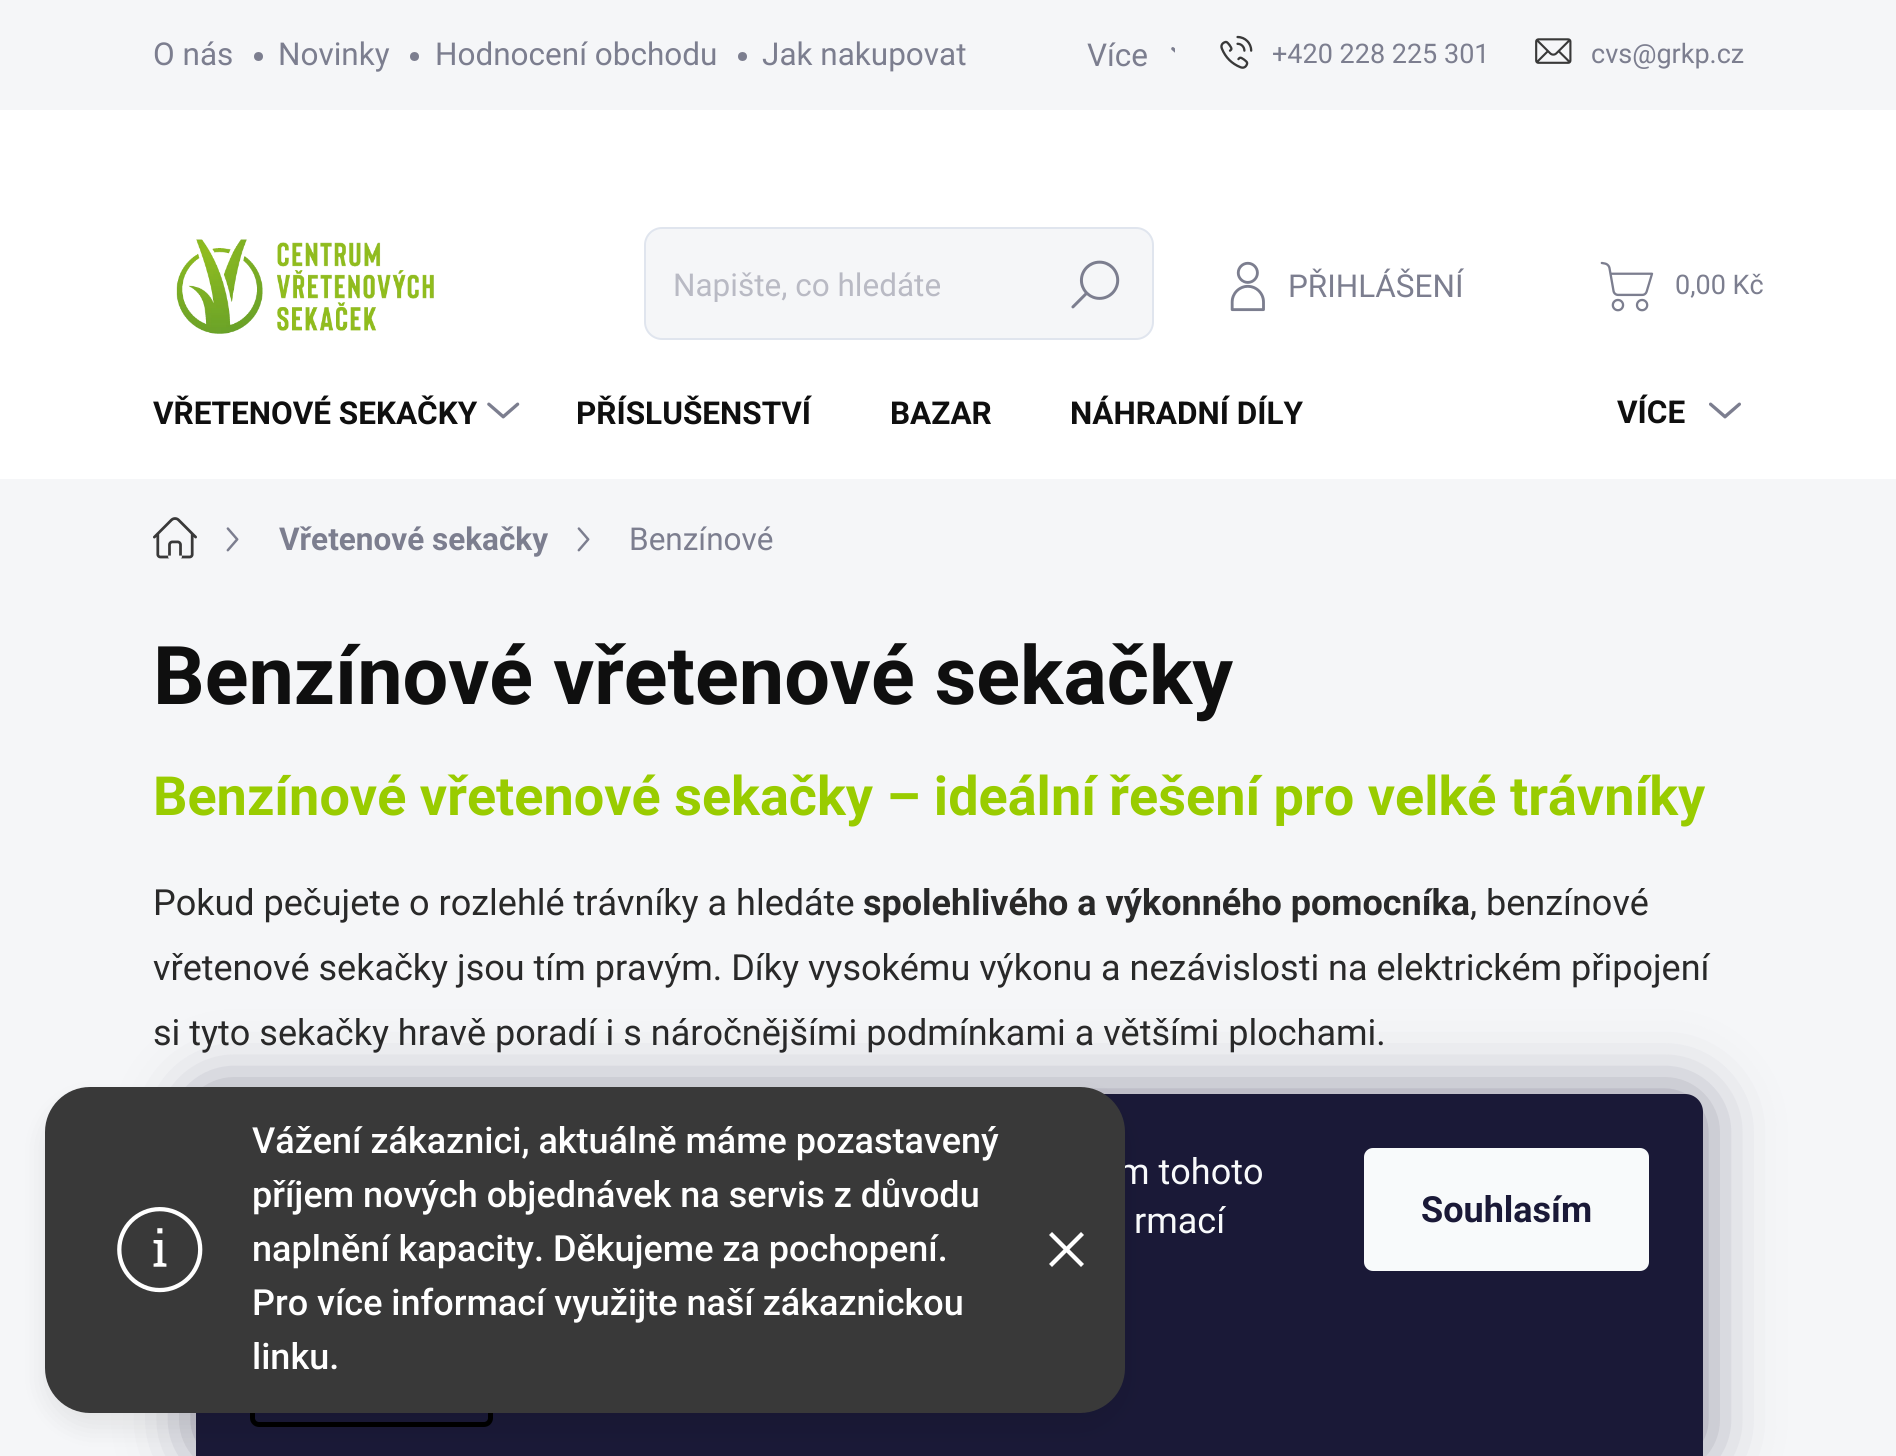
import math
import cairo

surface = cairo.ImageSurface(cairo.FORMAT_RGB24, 1896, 1456)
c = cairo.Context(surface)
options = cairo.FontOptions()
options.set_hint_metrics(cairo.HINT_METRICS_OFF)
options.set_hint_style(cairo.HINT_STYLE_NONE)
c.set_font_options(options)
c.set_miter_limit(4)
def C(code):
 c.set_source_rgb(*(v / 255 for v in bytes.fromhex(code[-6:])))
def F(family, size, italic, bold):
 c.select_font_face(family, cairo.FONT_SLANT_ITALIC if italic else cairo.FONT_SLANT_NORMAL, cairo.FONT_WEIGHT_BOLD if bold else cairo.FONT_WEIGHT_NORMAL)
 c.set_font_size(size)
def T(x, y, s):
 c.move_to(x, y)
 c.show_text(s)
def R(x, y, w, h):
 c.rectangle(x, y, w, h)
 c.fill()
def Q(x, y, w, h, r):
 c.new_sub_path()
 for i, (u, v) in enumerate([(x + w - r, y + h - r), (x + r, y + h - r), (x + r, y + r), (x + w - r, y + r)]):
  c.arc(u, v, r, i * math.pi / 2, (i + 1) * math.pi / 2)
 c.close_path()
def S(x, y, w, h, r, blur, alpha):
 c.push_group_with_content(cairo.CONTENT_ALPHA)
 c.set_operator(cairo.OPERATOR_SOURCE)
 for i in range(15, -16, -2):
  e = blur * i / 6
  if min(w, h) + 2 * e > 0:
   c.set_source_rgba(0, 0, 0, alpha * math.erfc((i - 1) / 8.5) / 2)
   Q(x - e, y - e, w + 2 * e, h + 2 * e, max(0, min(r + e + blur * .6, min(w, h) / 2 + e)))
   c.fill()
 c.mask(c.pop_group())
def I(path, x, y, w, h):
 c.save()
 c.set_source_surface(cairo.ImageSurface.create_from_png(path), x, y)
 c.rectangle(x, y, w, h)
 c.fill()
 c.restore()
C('f5f6f8')
c.paint()
F('Roboto',31.5,0,0)
C('7c7e8f')
T(153,65,'O nás')
c.new_path()
c.arc(258.5,56.5,4.5,0,2 * math.pi)
c.fill()
T(278,65,'Novinky')
c.new_path()
c.arc(414.5,56.5,4.5,0,2 * math.pi)
c.fill()
T(435,65,'Hodnocení obchodu')
c.new_path()
c.arc(742.5,56.5,4.5,0,2 * math.pi)
c.fill()
T(762,65,'Jak nakupovat')
T(1087,66,'Více')
I('1.png',1171,47,4,6)
I('2.png',1220,35,33,34)
F('Roboto',27,0,0)
T(1272,63,'+420 228 225 301')
I('3.png',1535,38,37,26)
T(1591,63,'cvs@grkp.cz')
C('ffffff')
R(0,110,1896,369)
I('4.png',176,239,258,95)
C('f5f6f8')
Q(645,228,508,111,17)
c.fill_preserve()
C('e0e5ee')
c.stroke()
c.save()
c.rectangle(673,266,358,36)
c.clip()
F('Roboto',31.5,0,0)
C('b9bac4')
T(673,296,'Napište, co hledáte')
c.restore()
I('5.png',1071,260,49,49)
I('6.png',1230,261,35,51)
F('Roboto',31.5,0,0)
C('7c7e8f')
T(1288,297,'PŘIHLÁŠENÍ')
I('7.png',1600,261,54,51)
F('Roboto',27,0,0)
T(1675,294,'0,00 Kč')
F('Roboto',31.5,0,1)
C('0f0f0f')
T(153,424,'VŘETENOVÉ SEKAČKY')
I('8.png',487,402,33,17)
T(576,424,'PŘÍSLUŠENSTVÍ')
T(890,424,'BAZAR')
T(1070,424,'NÁHRADNÍ DÍLY')
T(1617,423,'VÍCE')
I('9.png',1709,402,32,17)
I('10.png',153,517,44,42)
I('11.png',226,527,13,25)
C('7c7e8f')
T(279,550,'Vřetenové sekačky')
I('11.png',577,527,13,25)
F('Roboto',31.5,0,0)
T(629,550,'Benzínové')
F('Roboto',81,0,1)
C('0f0f0f')
T(153,704,'Benzínové vřetenové sekačky')
F('Roboto',54,0,1)
C('99cc00')
T(153,815,'Benzínové vřetenové sekačky – ideální řešení pro velké trávníky')
F('Roboto',36,0,0)
C('292929')
T(153,915,'Pokud pečujete o rozlehlé trávníky a hledáte')
F('Roboto',36,0,1)
T(863,915,'spolehlivého a výkonného pomocníka')
F('Roboto',36,0,0)
T(1470,915,', benzínové')
T(153,980,'vřetenové sekačky jsou tím pravým. Díky vysokému výkonu a nezávislosti na elektrickém připojení')
T(153,1045,'si tyto sekačky hravě poradí i s náročnějšími podmínkami a většími plochami.')
C('1b1939')
S(196,1094,1507,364,18,34,.5)
C('1a1937')
c.new_path()
c.move_to(214,1094)
c.line_to(1685,1094)
c.curve_to(1695,1094,1703,1102,1703,1112)
c.line_to(1703,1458)
c.line_to(196,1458)
c.line_to(196,1112)
c.curve_to(196,1102,204,1094,214,1094)
c.close_path()
c.fill()
Q(252.5,1334.5,238,90,6.5)
C('000000')
c.set_line_width(5)
c.stroke()
C('000000')
S(45,1100,1080,327,45,13.5,.08)
C('f8fafb')
T(1118,1184,'m tohoto')
C('393939')
Q(45,1087,1080,326,45)
c.fill()
F('Roboto Medium',36,0,0)
C('ffffff')
T(252,1153,'Vážení zákaznici, aktuálně máme pozastavený')
T(252,1207,'příjem nových objednávek na servis z důvodu')
I('12.png',117,1207,86,86)
T(252,1261,'naplnění kapacity. Děkujeme za pochopení.')
T(252,1315,'Pro více informací využijte naší zákaznickou')
T(252,1369,'linku.')
c.new_path()
c.move_to(1081,1232)
c.line_to(1084,1235)
c.line_to(1052,1267)
c.line_to(1049,1264)
c.close_path()
c.fill()
c.new_path()
c.move_to(1052,1232)
c.line_to(1084,1264)
c.line_to(1081,1267)
c.line_to(1049,1235)
c.close_path()
c.fill()
F('Roboto',36,0,0)
C('f8fafb')
T(1134,1233,'rmací')
Q(1364,1148,285,123,9)
c.fill()
F('Roboto',36,0,1)
C('1a1937')
T(1421,1222,'Souhlasím')
surface.write_to_png('o.png')
